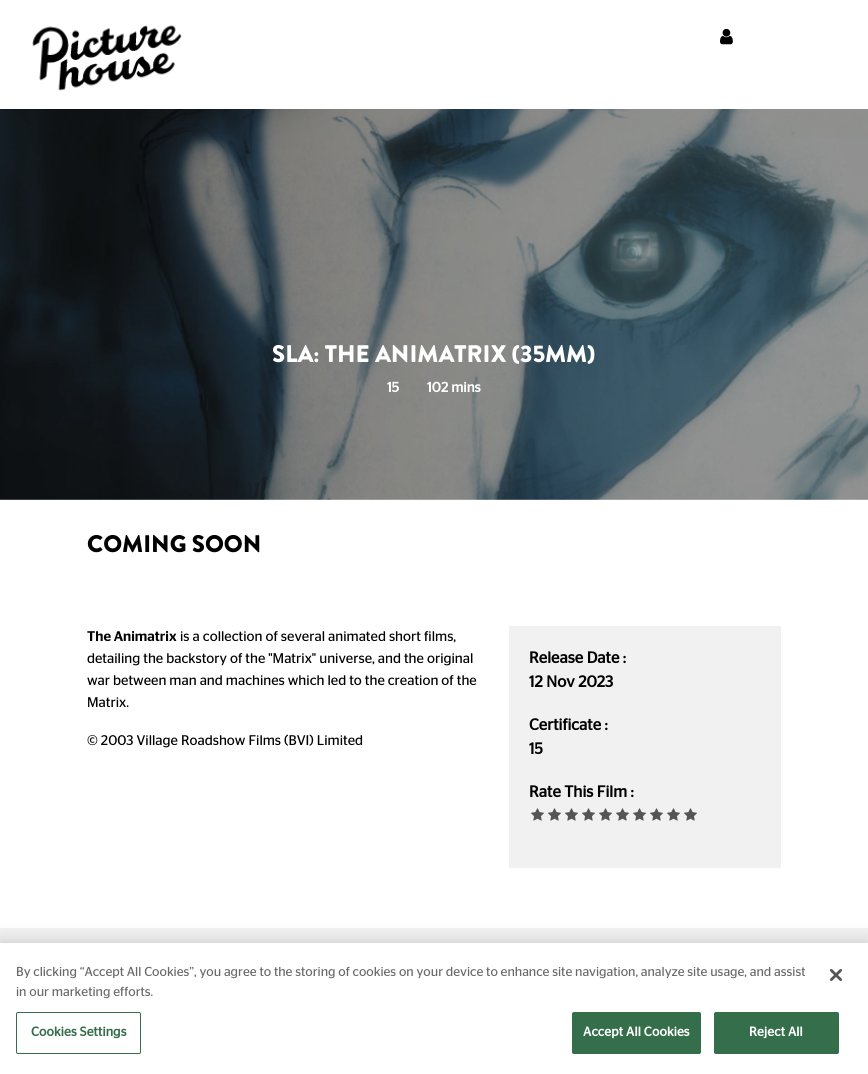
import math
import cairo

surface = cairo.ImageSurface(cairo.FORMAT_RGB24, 868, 1074)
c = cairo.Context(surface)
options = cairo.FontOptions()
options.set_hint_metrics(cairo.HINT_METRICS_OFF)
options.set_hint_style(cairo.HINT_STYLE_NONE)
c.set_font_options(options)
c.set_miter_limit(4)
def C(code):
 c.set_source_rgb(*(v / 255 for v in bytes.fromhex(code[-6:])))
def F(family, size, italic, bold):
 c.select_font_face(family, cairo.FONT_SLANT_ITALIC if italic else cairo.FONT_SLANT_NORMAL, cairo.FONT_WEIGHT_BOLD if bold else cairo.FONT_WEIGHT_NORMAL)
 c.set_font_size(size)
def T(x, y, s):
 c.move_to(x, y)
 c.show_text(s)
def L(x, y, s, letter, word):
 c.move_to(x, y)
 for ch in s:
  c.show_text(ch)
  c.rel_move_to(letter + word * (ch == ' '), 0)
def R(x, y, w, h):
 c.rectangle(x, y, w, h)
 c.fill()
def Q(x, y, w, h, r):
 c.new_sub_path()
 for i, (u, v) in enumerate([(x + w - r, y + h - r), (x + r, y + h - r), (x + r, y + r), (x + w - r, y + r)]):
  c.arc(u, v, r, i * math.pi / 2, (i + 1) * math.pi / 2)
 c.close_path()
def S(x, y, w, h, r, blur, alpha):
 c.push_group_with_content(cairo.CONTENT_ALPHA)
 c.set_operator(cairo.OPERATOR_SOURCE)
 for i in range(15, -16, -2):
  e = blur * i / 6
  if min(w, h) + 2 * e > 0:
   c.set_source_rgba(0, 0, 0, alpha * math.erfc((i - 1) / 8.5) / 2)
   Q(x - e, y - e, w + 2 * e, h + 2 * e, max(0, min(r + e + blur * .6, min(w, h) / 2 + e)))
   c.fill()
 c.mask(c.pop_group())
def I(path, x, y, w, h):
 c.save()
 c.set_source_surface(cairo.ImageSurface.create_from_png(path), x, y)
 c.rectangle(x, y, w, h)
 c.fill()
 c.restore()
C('ffffff')
c.paint()
I('1.png',32,25,150,66)
I('2.png',720,28,13,17)
I('3.png',0,109,868,391)
F('Brandon Grotesque Black',24,0,0)
C('ffffff')
T(272,362,'SLA: THE ANIMATRIX (35MM)')
F('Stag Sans',14,0,1)
T(387,392,'15')
T(427,392,'102 mins')
F('Brandon Grotesque Black',24,0,0)
C('000000')
T(87,552,'COMING SOON')
F('Stag Sans Medium',14,0,0)
T(87,641,'The Animatrix')
F('Stag Sans',14,0,0)
T(180,641,'is a collection of several animated short films,')
T(87,663,'detailing the backstory of the "Matrix" universe, and the original')
T(87,685,'war between man and machines which led to the creation of the')
T(87,707,'Matrix.')
T(87,745,'© 2003 Village Roadshow Films (BVI) Limited')
C('f1f1f1')
R(509,626,272,242)
F('Stag Sans',16,0,1)
C('000000')
T(529,663,'Release Date :')
T(529,687,'12 Nov 2023')
T(529,730,'Certificate :')
T(529,754,'15')
T(529,797,'Rate This Film :')
I('4.png',531,808,13,13)
I('4.png',548,808,13,13)
I('4.png',565,808,13,13)
I('4.png',582,808,13,13)
I('4.png',599,808,13,13)
I('4.png',616,808,13,13)
I('4.png',633,808,13,13)
I('4.png',650,808,13,13)
I('4.png',667,808,13,13)
I('4.png',684,808,13,13)
C('f2f2f2')
R(0,928,868,15)
C('000000')
S(0,943,868,131,0,9,.2)
C('ffffff')
R(0,943,868,131)
F('Stag Sans',13,0,0)
C('696969')
T(16,976,'By clicking “Accept All Cookies”, you agree to the storing of cookies on your device to enhance site navigation, analyze site usage, and assist')
T(16,996,'in our marketing efforts.')
Q(16.5,1012.5,124,41,1.5)
C('346e4a')
c.set_line_width(1)
c.stroke()
F('Stag Sans',13,0,1)
L(31,1036,'Cookies Settings',.1,0)
Q(572.5,1012.5,128,41,1.5)
c.fill_preserve()
c.stroke()
C('ffffff')
L(583,1036,'Accept All Cookies',.1,0)
C('346e4a')
Q(714.5,1012.5,124,41,1.5)
c.fill_preserve()
c.stroke()
C('ffffff')
L(749,1036,'Reject All',.1,0)
I('5.png',830,969,12,12)
surface.write_to_png('o.png')
